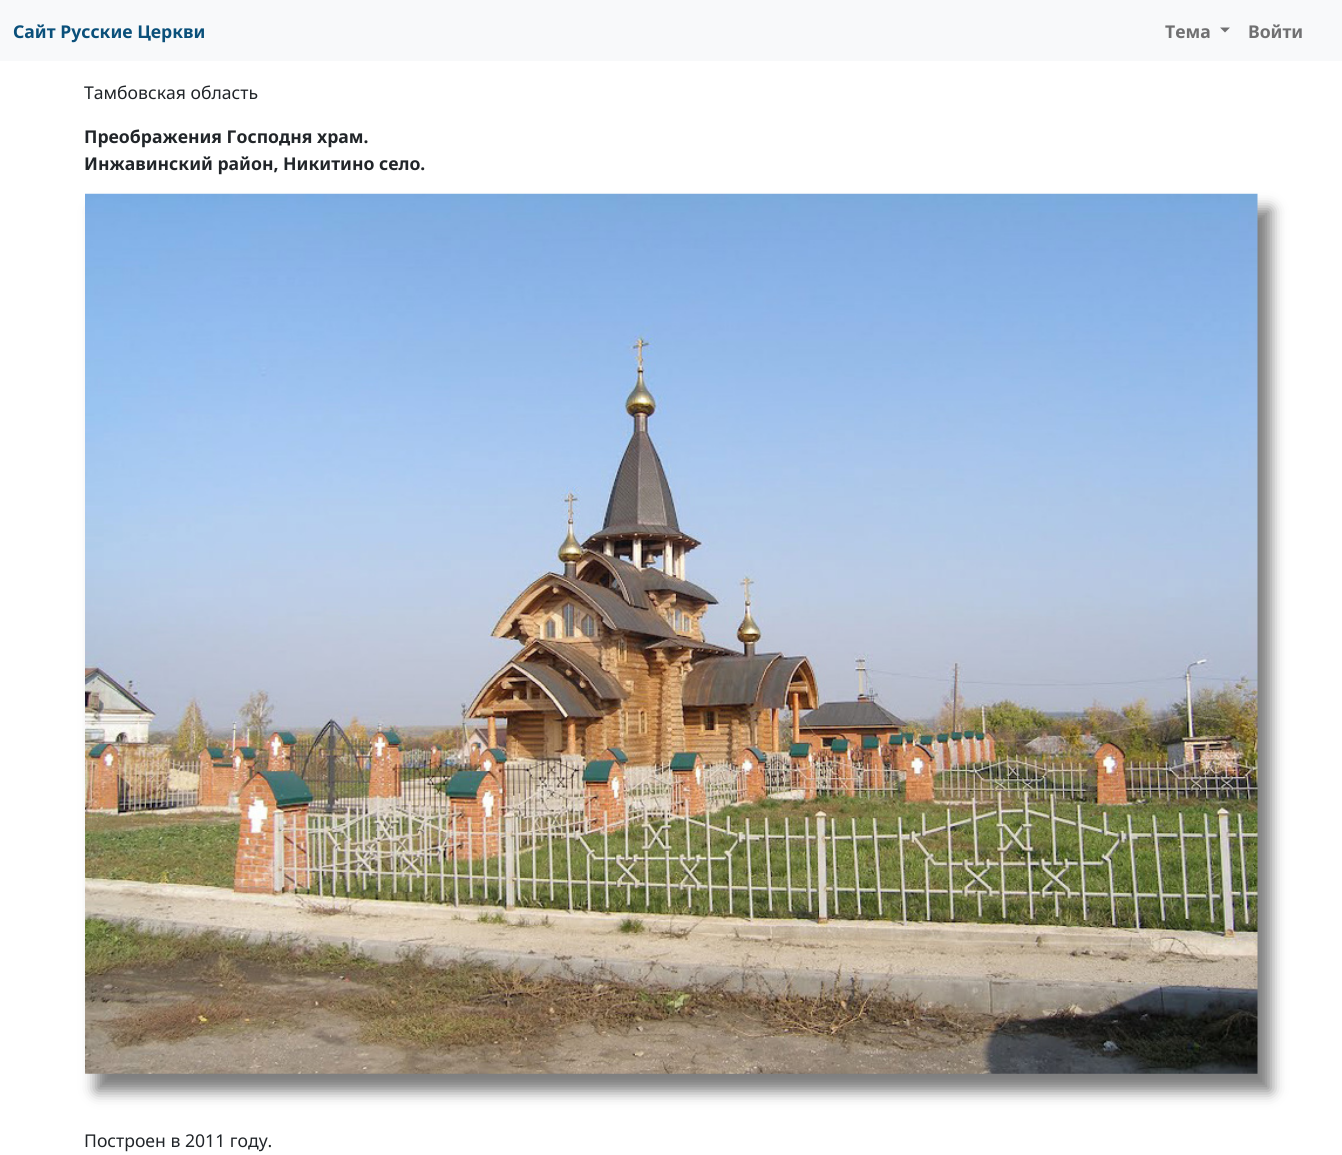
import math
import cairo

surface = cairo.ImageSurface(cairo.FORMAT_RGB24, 1342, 1155)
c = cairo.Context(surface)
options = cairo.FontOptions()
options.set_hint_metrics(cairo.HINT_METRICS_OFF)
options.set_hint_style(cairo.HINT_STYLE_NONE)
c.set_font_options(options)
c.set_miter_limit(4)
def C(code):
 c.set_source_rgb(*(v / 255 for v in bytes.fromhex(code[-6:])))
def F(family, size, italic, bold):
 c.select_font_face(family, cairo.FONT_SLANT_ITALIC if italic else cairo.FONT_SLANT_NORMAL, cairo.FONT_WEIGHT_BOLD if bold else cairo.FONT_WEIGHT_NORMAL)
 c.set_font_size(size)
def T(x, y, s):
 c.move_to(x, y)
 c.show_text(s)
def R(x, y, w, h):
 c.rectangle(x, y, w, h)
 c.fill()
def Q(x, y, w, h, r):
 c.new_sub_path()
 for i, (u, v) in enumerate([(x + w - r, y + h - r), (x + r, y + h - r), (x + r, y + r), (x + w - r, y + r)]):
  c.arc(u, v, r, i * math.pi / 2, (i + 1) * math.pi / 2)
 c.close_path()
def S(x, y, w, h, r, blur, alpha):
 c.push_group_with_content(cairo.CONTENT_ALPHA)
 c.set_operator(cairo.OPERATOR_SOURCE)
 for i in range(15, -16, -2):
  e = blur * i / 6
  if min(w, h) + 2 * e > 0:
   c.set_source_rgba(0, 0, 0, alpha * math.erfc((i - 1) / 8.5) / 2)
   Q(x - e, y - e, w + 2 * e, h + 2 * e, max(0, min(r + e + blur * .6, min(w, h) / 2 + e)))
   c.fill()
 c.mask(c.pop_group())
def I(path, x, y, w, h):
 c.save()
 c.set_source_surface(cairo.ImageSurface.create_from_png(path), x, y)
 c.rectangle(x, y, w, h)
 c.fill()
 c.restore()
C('ffffff')
c.paint()
C('f8f9fa')
R(0,0,1342,61)
F('Noto Sans',17.6,0,1)
C('0a507a')
T(13,38,'Сайт Русские Церкви')
C('707071')
T(1165,38,'Тема')
c.new_path()
c.move_to(1220,27.5)
c.line_to(1230,27.5)
c.line_to(1225,32.5)
c.close_path()
c.fill()
T(1248,38,'Войти')
F('Noto Sans',17.6,0,0)
C('212529')
T(84,99,'Тамбовская область')
F('Noto Sans',17.6,0,1)
T(84,143,'Преображения Господня храм.')
T(84,170,'Инжавинский район, Никитино село.')
C('000000')
S(96,209,1175,882,0,7.5,.51)
I('1.png',85,193,1173,881)
F('Noto Sans',17.6,0,0)
C('212529')
T(84,1147,'Построен в 2011 году.')
surface.write_to_png('o.png')
